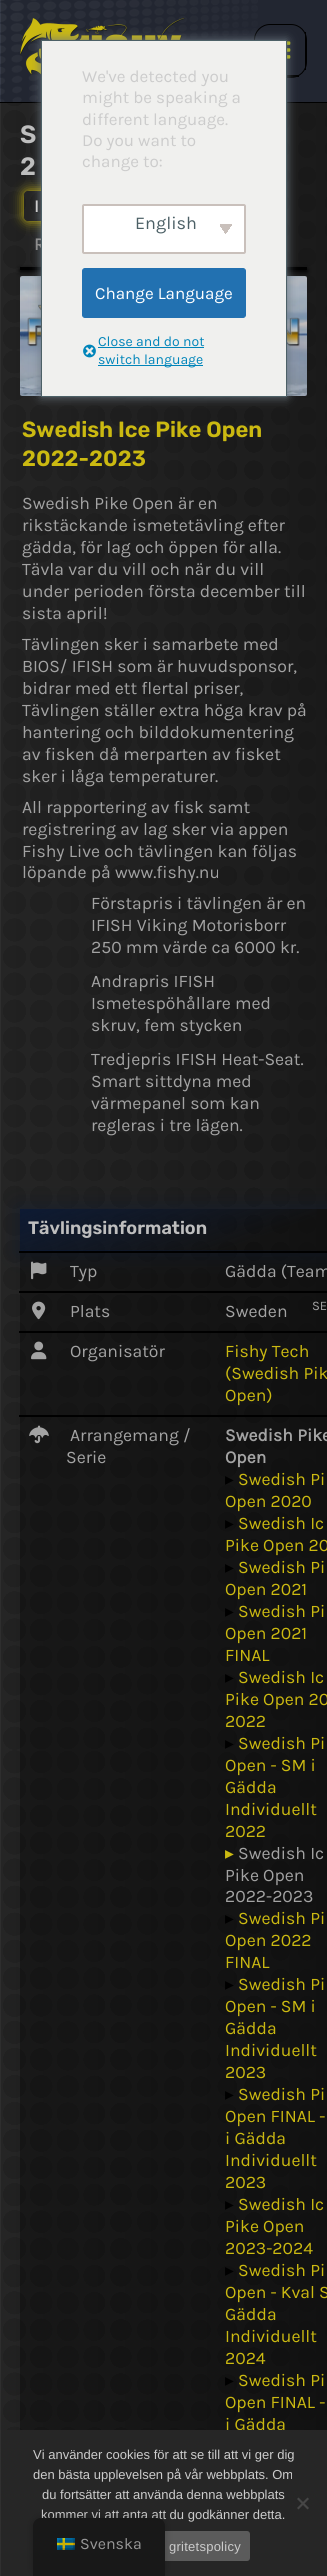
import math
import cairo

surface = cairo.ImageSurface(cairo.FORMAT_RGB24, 327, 2576)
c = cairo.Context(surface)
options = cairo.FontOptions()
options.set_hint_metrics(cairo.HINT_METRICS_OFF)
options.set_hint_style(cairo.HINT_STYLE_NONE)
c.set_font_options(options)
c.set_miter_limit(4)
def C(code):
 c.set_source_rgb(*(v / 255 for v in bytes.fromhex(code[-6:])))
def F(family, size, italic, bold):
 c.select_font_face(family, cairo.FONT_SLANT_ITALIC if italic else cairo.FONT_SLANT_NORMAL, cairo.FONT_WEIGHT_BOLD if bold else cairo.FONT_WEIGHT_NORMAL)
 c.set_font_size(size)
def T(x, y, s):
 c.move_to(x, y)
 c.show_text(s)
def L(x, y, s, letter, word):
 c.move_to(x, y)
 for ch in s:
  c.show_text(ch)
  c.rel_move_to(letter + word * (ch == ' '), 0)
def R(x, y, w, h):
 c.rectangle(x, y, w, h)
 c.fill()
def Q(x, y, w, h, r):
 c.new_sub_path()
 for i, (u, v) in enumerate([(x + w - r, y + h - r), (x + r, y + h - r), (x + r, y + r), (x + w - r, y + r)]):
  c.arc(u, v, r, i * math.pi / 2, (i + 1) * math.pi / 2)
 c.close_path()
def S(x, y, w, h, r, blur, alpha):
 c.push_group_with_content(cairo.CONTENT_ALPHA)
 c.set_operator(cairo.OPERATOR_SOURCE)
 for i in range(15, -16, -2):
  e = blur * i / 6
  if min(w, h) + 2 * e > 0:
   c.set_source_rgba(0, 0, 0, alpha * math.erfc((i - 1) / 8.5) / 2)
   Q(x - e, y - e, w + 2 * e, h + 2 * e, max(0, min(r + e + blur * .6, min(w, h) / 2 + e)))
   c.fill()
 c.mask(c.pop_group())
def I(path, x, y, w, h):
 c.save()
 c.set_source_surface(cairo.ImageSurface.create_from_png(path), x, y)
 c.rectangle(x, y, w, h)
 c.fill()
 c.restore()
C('ffffff')
c.paint()
I('1.png',0,103,327,2327)
C('222631')
R(1,0,326,102)
C('2b303d')
R(0,0,1,102)
I('3.png',0,0,258,102)
C('000000')
R(0,102,327,1)
I('4.png',20,18,165,57)
Q(254.5,24.5,52,53,15.5)
c.set_line_width(1)
c.stroke()
R(287,75,12,2)
I('5.png',287,41,4,18)
I('6.png',20,276,287,120)
C('000000')
S(20,269,287,3,0,2.5,1)
C('000000')
R(20,267,287,3)
C('6c7781')
S(41,40,246,357,0,5,1)
c.save()
c.set_fill_rule(cairo.FILL_RULE_EVEN_ODD)
c.new_path()
c.move_to(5,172)
c.line_to(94,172)
c.line_to(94,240)
c.line_to(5,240)
c.close_path()
c.move_to(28,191)
c.line_to(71,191)
c.curve_to(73,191,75,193,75,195)
c.line_to(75,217)
c.curve_to(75,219,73,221,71,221)
c.line_to(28,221)
c.curve_to(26,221,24,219,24,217)
c.line_to(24,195)
c.curve_to(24,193,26,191,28,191)
c.close_path()
c.clip()
C('cbb911')
S(24,191,51,30,4,6,1)
c.restore()
F('Karla',17.6,0,1)
C('8d8d8d')
T(34,250,'R')
C('f0f0ee')
c.rectangle(41.5,40.5,245,356)
c.fill_preserve()
C('4c6066')
c.stroke()
F('Karla',17,0,0)
C('cccccc')
T(82,82,'We\'ve detected you')
T(82,103,'might be speaking a')
T(82,125,'different language.')
T(82,146,'Do you want to')
T(82,167,'change to:')
C('ffffff')
Q(82,204,164,50,2)
c.fill()
gradient = cairo.LinearGradient(224,227,233,233)
gradient.add_color_stop_rgba(.5,0.788,0.753,0.733,1)
gradient.add_color_stop_rgba(.5,1,1,1,1)
c.set_source(gradient)
R(226,224,6,12)
gradient = cairo.LinearGradient(218,233,227,227)
gradient.add_color_stop_rgba(.5,1,1,1,1)
gradient.add_color_stop_rgba(.5,0.788,0.753,0.733,1)
c.set_source(gradient)
R(220,224,6,12)
Q(83,205,162,48,1)
C('c9c0bb')
c.set_line_width(2)
c.stroke()
F('Karla',18,0,0)
C('4c6066')
T(135,229,'English')
C('2271b1')
Q(82.5,268.5,163,49,2.5)
c.fill_preserve()
c.set_line_width(1)
c.stroke()
F('Karla',17,0,0)
C('ffffff')
T(95,299,'Change Language')
I('2.png',83,344,13,14)
F('Karla',14,0,0)
C('0085ba')
T(98,346,'Close and do not')
R(98,347,106,1)
R(98,365,105,1)
T(98,364,'switch language')
C('000000')
R(305,32,1,38)
F('Rubik SemiBold',25,0,0)
C('bebebe')
T(20,143,'S')
T(20,175,'2')
F('Karla',17.6,0,1)
C('cccccc')
T(34,212,'I')
F('Rubik SemiBold',22,0,0)
C('cbb911')
T(22,437,'Swedish Ice Pike Open')
T(22,466,'2022-2023')
F('Karla',17.6,0,0)
C('a3a3a3')
T(22,509,'Swedish Pike Open är en')
T(22,531,'rikstäckande ismetetävling efter')
T(22,553,'gädda, för lag och öppen för alla.')
T(22,575,'Tävla var du vill och när du vill')
T(22,597,'under perioden första december till')
T(22,619,'sista april!')
T(22,650,'Tävlingen sker i samarbete med')
T(22,672,'BIOS/ IFISH som är huvudsponsor,')
T(22,694,'bidrar med ett flertal priser,')
T(22,716,'Tävlingen ställer extra höga krav på')
T(22,738,'hantering och bilddokumentering')
T(22,760,'av fisken då merparten av fisket')
T(22,782,'sker i låga temperaturer.')
T(22,813,'All rapportering av fisk samt')
T(22,835,'registrering av lag sker via appen')
T(22,857,'Fishy Live och tävlingen kan följas')
T(22,878,'löpande på www.fishy.nu')
T(91,909,'Förstapris i tävlingen är en')
T(91,931,'IFISH Viking Motorisborr')
T(91,953,'250 mm värde ca 6000 kr.')
T(91,987,'Andrapris IFISH')
T(91,1009,'Ismetespöhållare med')
T(91,1031,'skruv, fem stycken')
T(91,1065,'Tredjepris IFISH Heat-Seat.')
T(91,1087,'Smart sittdyna med')
T(91,1109,'värmepanel som kan')
T(91,1131,'regleras i tre lägen.')
c.set_source_rgba(0,0,0,0.33)
R(20,1209,307,1221)
c.save()
c.set_fill_rule(cairo.FILL_RULE_EVEN_ODD)
c.new_path()
c.move_to(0,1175)
c.line_to(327,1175)
c.line_to(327,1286)
c.line_to(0,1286)
c.close_path()
c.move_to(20,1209)
c.line_to(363,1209)
c.line_to(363,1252)
c.line_to(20,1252)
c.close_path()
c.clip()
C('0d1a33')
S(17,1206,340,49,0,10,.5)
c.restore()
gradient = cairo.LinearGradient(218,1303,165,1156)
gradient.add_color_stop_rgba(.3,0.051,0.102,0.2,0)
gradient.add_color_stop_rgba(1,0.051,0.102,0.2,1)
c.set_source(gradient)
R(20,1209,297,41)
gradient = cairo.LinearGradient(218,1344,165,1197)
gradient.add_color_stop_rgba(.3,0.051,0.102,0.2,0)
gradient.add_color_stop_rgba(1,0.051,0.102,0.2,1)
c.set_source(gradient)
R(20,1250,297,1)
C('000000')
R(19,1251,308,2)
F('Rubik SemiBold',18,0,0)
C('bebebe')
T(28,1234,'Tävlingsinformation')
C('000000')
R(19,1291,308,2)
I('7.png',31,1261,16,19)
F('Karla',17.6,0,0)
C('a3a3a3')
T(70,1277,'Typ')
T(225,1277,'Gädda (Team')
C('000000')
R(19,1331,308,2)
I('8.png',32,1301,14,19)
C('a3a3a3')
T(70,1317,'Plats')
T(225,1317,'Sweden')
F('Karla',13,0,0)
T(312,1310,'SE')
C('000000')
R(19,1415,308,2)
I('9.png',31,1341,16,19)
F('Karla',17.6,0,0)
C('a3a3a3')
T(70,1357,'Organisatör')
C('cbb911')
T(225,1357,'Fishy Tech')
T(225,1379,'(Swedish Pik')
T(225,1401,'Open)')
I('10.png',29,1425,20,19)
C('a3a3a3')
T(70,1441,'Arrangemang /')
T(66,1463,'Serie')
F('Karla',17.6,0,1)
T(225,1441,'Swedish Pike')
T(225,1463,'Open')
F('DejaVu Sans',17.6,0,0)
C('000000')
T(225,1485,'▸')
F('Karla',17.6,0,0)
C('cbb911')
T(238,1485,'Swedish Pi')
T(225,1507,'Open 2020')
F('DejaVu Sans',17.6,0,0)
C('000000')
T(225,1529,'▸')
F('Karla',17.6,0,0)
C('cbb911')
T(238,1529,'Swedish Ic')
T(225,1551,'Pike Open 20')
F('DejaVu Sans',17.6,0,0)
C('000000')
T(225,1573,'▸')
F('Karla',17.6,0,0)
C('cbb911')
T(238,1573,'Swedish Pi')
T(225,1595,'Open 2021')
F('DejaVu Sans',17.6,0,0)
C('000000')
T(225,1617,'▸')
F('Karla',17.6,0,0)
C('cbb911')
T(238,1617,'Swedish Pi')
T(225,1639,'Open 2021')
T(225,1661,'FINAL')
F('DejaVu Sans',17.6,0,0)
C('000000')
T(225,1683,'▸')
F('Karla',17.6,0,0)
C('cbb911')
T(238,1683,'Swedish Ic')
T(225,1705,'Pike Open 20')
T(225,1727,'2022')
F('DejaVu Sans',17.6,0,0)
C('000000')
T(225,1749,'▸')
F('Karla',17.6,0,0)
C('cbb911')
T(238,1749,'Swedish Pi')
T(225,1771,'Open - SM i')
T(225,1793,'Gädda')
T(225,1815,'Individuellt')
T(225,1837,'2022')
F('DejaVu Sans',17.6,0,0)
T(225,1859,'▸')
F('Karla',17.6,0,0)
C('a3a3a3')
T(238,1859,'Swedish Ic')
T(225,1881,'Pike Open')
T(225,1902,'2022-2023')
F('DejaVu Sans',17.6,0,0)
C('000000')
T(225,1924,'▸')
F('Karla',17.6,0,0)
C('cbb911')
T(238,1924,'Swedish Pi')
T(225,1946,'Open 2022')
T(225,1968,'FINAL')
F('DejaVu Sans',17.6,0,0)
C('000000')
T(225,1990,'▸')
F('Karla',17.6,0,0)
C('cbb911')
T(238,1990,'Swedish Pi')
T(225,2012,'Open - SM i')
T(225,2034,'Gädda')
T(225,2056,'Individuellt')
T(225,2078,'2023')
F('DejaVu Sans',17.6,0,0)
C('000000')
T(225,2100,'▸')
F('Karla',17.6,0,0)
C('cbb911')
T(238,2100,'Swedish Pi')
T(225,2122,'Open FINAL -')
T(225,2144,'i Gädda')
T(225,2166,'Individuellt')
T(225,2188,'2023')
F('DejaVu Sans',17.6,0,0)
C('000000')
T(225,2210,'▸')
F('Karla',17.6,0,0)
C('cbb911')
T(238,2210,'Swedish Ic')
T(225,2232,'Pike Open')
T(225,2254,'2023-2024')
F('DejaVu Sans',17.6,0,0)
C('000000')
T(225,2276,'▸')
F('Karla',17.6,0,0)
C('cbb911')
T(238,2276,'Swedish Pi')
T(225,2298,'Open - Kval S')
T(225,2320,'Gädda')
T(225,2342,'Individuellt')
T(225,2364,'2024')
F('DejaVu Sans',17.6,0,0)
C('000000')
T(225,2386,'▸')
F('Karla',17.6,0,0)
C('cbb911')
T(238,2386,'Swedish Pi')
T(225,2408,'Open FINAL -')
T(225,2430,'i Gädda')
C('303030')
R(0,2430,1,146)
C('262626')
R(1,2430,326,146)
F('Liberation Sans',13,0,0)
C('cccccc')
T(33,2459,'Vi använder cookies för att se till att vi ger dig')
T(33,2479,'den bästa upplevelsen på vår webbplats. Om')
T(42,2499,'du fortsätter att använda denna webbplats')
T(41,2519,'kommer vi att anta att du godkänner detta.')
C('464646')
c.new_path()
c.move_to(307.5,2497.5)
c.line_to(309,2499)
c.line_to(298.5,2509.5)
c.line_to(297,2508)
c.close_path()
c.fill()
c.new_path()
c.move_to(297,2499)
c.line_to(298.5,2497.5)
c.line_to(309,2508)
c.line_to(307.5,2509.5)
c.close_path()
c.fill()
C('5b5b5b')
Q(136,2531,114,30,3)
c.fill()
C('cccccc')
L(169,2551,'gritetspolicy',.25,0)
C('000000')
S(33,2518,132,58,8,4,.25)
C('181818')
c.new_path()
c.move_to(41,2518)
c.line_to(157,2518)
c.curve_to(161.5,2518,165,2521.5,165,2526)
c.line_to(165,2576)
c.line_to(33,2576)
c.line_to(33,2526)
c.curve_to(33,2521.5,36.5,2518,41,2518)
c.close_path()
c.fill()
I('11.png',57,2538,18,12)
F('Karla',16,0,0)
C('979797')
T(80,2549,'Svenska')
surface.write_to_png('o.png')
